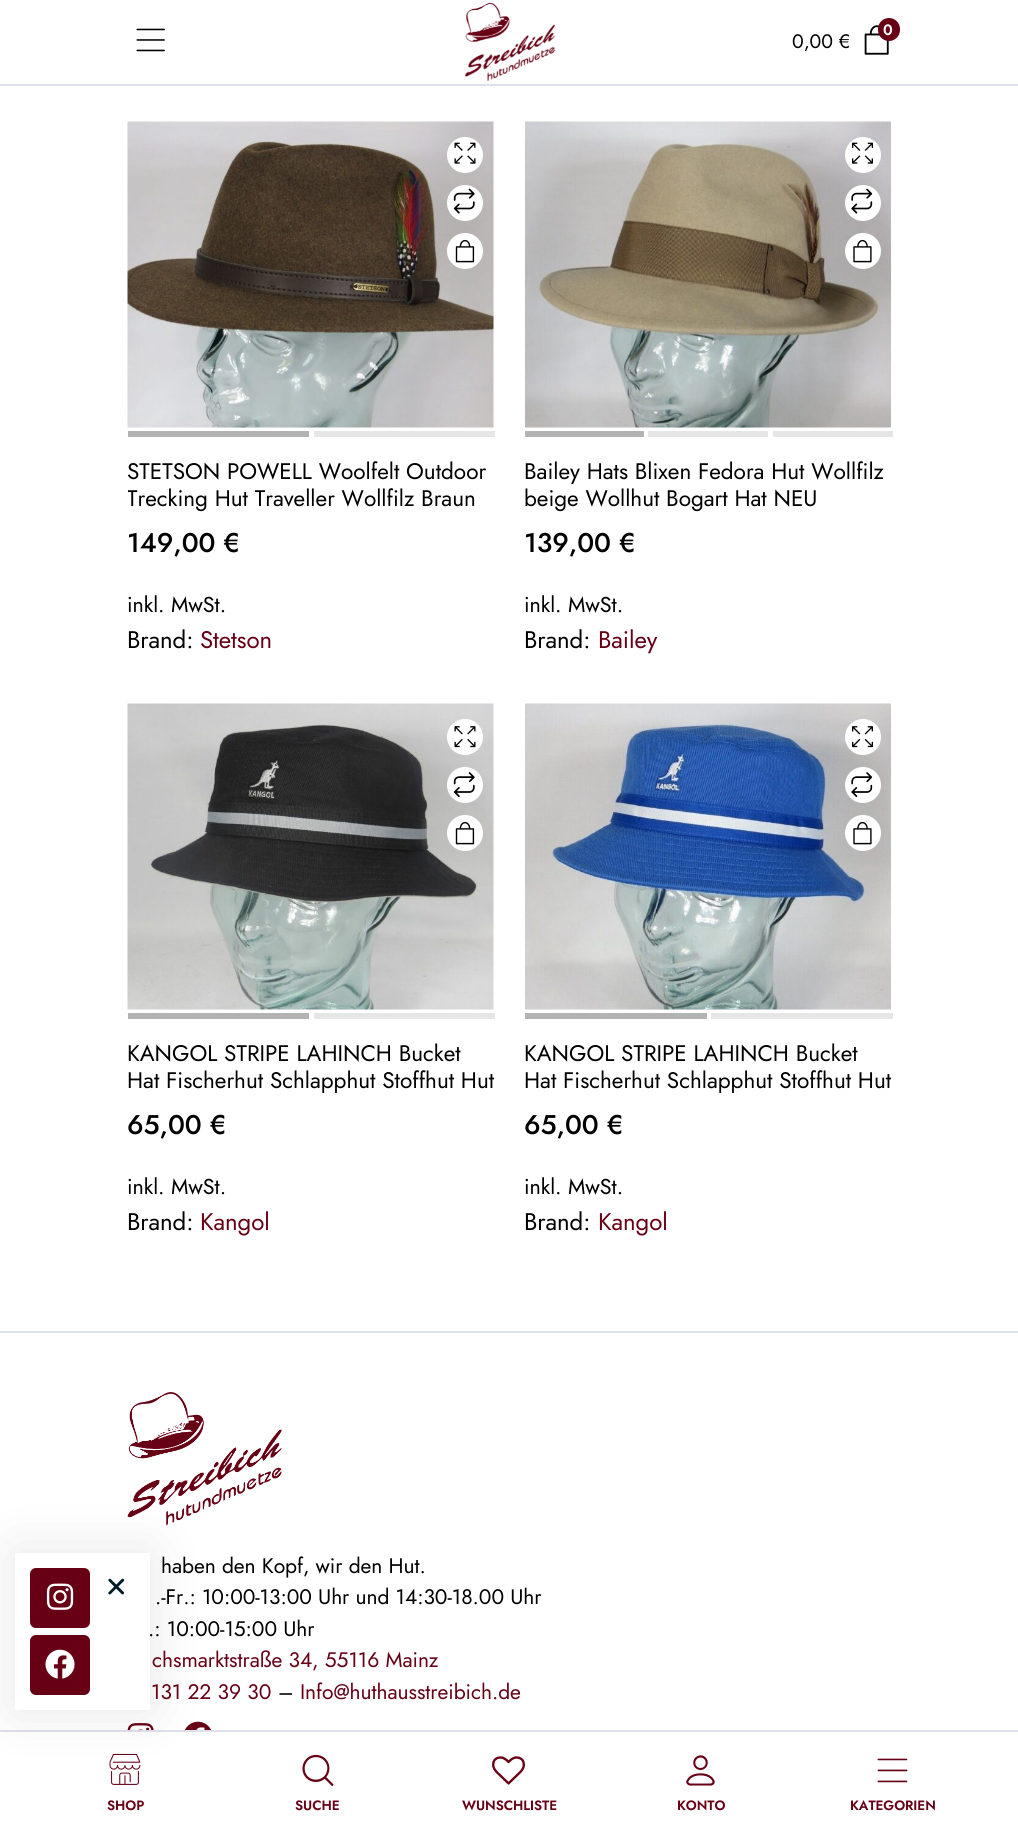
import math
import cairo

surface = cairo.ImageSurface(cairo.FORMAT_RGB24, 1018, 1829)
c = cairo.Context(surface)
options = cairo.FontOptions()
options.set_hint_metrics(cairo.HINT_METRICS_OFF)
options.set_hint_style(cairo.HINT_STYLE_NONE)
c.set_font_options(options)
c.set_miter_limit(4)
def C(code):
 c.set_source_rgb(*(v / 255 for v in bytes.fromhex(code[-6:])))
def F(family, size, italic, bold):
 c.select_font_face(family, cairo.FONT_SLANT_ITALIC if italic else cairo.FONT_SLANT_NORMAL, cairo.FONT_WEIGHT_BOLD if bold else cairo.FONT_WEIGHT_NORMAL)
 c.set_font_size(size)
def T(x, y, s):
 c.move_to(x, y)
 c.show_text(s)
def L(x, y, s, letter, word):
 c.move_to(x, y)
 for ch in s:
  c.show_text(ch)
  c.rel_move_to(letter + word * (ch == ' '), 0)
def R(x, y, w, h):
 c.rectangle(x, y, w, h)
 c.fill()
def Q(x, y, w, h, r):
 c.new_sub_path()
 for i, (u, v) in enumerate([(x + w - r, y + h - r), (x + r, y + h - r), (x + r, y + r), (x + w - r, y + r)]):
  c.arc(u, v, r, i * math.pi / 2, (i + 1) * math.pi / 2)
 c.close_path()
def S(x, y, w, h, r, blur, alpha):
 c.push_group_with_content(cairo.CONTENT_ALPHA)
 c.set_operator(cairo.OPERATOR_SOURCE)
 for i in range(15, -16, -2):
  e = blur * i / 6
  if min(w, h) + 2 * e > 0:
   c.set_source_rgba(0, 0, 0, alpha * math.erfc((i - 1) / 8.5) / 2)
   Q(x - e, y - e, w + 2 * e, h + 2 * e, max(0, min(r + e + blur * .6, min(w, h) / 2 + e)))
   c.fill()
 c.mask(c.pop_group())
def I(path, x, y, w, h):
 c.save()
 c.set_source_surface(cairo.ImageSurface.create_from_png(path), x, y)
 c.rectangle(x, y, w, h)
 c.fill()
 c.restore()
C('ffffff')
c.paint()
C('dee0ea')
R(0,84,1018,2)
I('1.png',136,28,29,24)
I('2.png',464,3,91,78)
I('3.png',864,25,25,30)
C('670015')
Q(878,18,22,23,11)
c.fill()
F('Jost SemiBold',15,0,0)
C('ffffff')
L(883,35,'0',-.05,0)
F('Jost',19.5,0,0)
C('000000')
L(792,48,'0,00 €',-.05,0)
I('4.png',127,121,367,307)
C('b3b3b3')
R(128,431,181,6)
C('e6e6e6')
R(314,431,181,6)
C('ffffff')
c.arc(465,155,18,0,2 * math.pi)
c.fill()
I('5.png',454,142,22,22)
c.arc(465,203,18,0,2 * math.pi)
c.fill()
I('6.png',453,188,22,26)
c.arc(465,251,18,0,2 * math.pi)
c.fill()
I('7.png',455,239,20,24)
F('Jost',22.5,0,0)
C('000000')
T(127,479,'STETSON POWELL Woolfelt Outdoor')
c.save()
c.rectangle(128,458,367,54)
c.clip()
T(127,506,'Trecking Hut Traveller Wollfilz Braun')
c.restore()
F('Jost Medium',27,0,0)
L(127,552,'149,00 €',-.05,0)
F('Jost',21.5,0,0)
L(127,612,'inkl. MwSt.',-.05,0)
F('Jost',24,0,0)
L(127,648,'Brand:',-.05,0)
C('670015')
L(200,648,'Stetson',-.05,0)
I('8.png',525,121,366,307)
C('b3b3b3')
R(525,431,119,6)
C('e6e6e6')
R(648,431,120,6)
R(773,431,120,6)
C('ffffff')
c.arc(863,155,18,0,2 * math.pi)
c.fill()
I('9.png',852,142,21,22)
c.arc(863,203,18,0,2 * math.pi)
c.fill()
I('10.png',851,188,22,26)
c.arc(863,251,18,0,2 * math.pi)
c.fill()
I('11.png',853,239,19,24)
F('Jost',22.5,0,0)
C('000000')
T(524,479,'Bailey Hats Blixen Fedora Hut Wollfilz')
T(524,506,'beige Wollhut Bogart Hat NEU')
F('Jost Medium',27,0,0)
L(524,552,'139,00 €',-.05,0)
F('Jost',21.5,0,0)
L(524,612,'inkl. MwSt.',-.05,0)
F('Jost',24,0,0)
L(524,648,'Brand:',-.05,0)
C('670015')
L(598,648,'Bailey',-.05,0)
I('12.png',127,703,367,307)
C('b3b3b3')
R(128,1013,181,6)
C('e6e6e6')
R(314,1013,181,6)
C('ffffff')
c.arc(465,737,18,0,2 * math.pi)
c.fill()
I('13.png',454,726,22,22)
c.arc(465,785,18,0,2 * math.pi)
c.fill()
I('14.png',453,772,22,25)
c.arc(465,833,18,0,2 * math.pi)
c.fill()
I('7.png',455,821,20,24)
F('Jost',22.5,0,0)
C('000000')
T(127,1061,'KANGOL STRIPE LAHINCH Bucket')
T(127,1088,'Hat Fischerhut Schlapphut Stoffhut Hut')
F('Jost Medium',27,0,0)
L(127,1134,'65,00 €',-.05,0)
F('Jost',21.5,0,0)
L(127,1194,'inkl. MwSt.',-.05,0)
F('Jost',24,0,0)
L(127,1230,'Brand:',-.05,0)
C('670015')
L(200,1230,'Kangol',-.05,0)
I('15.png',525,703,366,307)
C('b3b3b3')
R(525,1013,182,6)
C('e6e6e6')
R(711,1013,182,6)
C('ffffff')
c.arc(863,737,18,0,2 * math.pi)
c.fill()
I('16.png',852,726,21,22)
c.arc(863,785,18,0,2 * math.pi)
c.fill()
I('17.png',851,772,22,25)
c.arc(863,833,18,0,2 * math.pi)
c.fill()
I('11.png',853,821,19,24)
F('Jost',22.5,0,0)
C('000000')
T(524,1061,'KANGOL STRIPE LAHINCH Bucket')
T(524,1088,'Hat Fischerhut Schlapphut Stoffhut Hut')
F('Jost Medium',27,0,0)
L(524,1134,'65,00 €',-.05,0)
F('Jost',21.5,0,0)
L(524,1194,'inkl. MwSt.',-.05,0)
F('Jost',24,0,0)
L(524,1230,'Brand:',-.05,0)
C('670015')
L(598,1230,'Kangol',-.05,0)
I('21.png',127,1392,155,134)
I('22.png',127,1723,27,7)
I('23.png',185,1721,26,9)
C('dee0ea')
R(0,1730,1018,2)
I('24.png',109,1753,32,32)
C('000000')
S(15,1553,135,157,0,26,.1)
C('ffffff')
R(15,1553,135,157)
C('670015')
Q(30,1568,60,60,6)
c.fill()
I('18.png',46,1583,28,27)
Q(30,1635,60,60,6)
c.fill()
I('19.png',45,1649,30,30)
I('20.png',108,1578,17,17)
C('dee0ea')
R(0,1331,1018,2)
F('Jost',21,0,0)
C('000000')
L(161,1573,'haben den Kopf, wir den Hut.',-.05,0)
L(155,1604,'.-Fr.: 10:00-13:00 Uhr und 14:30-18.00 Uhr',-.05,0)
L(148,1636,'.: 10:00-15:00 Uhr',-.05,0)
C('670015')
L(152,1667,'chsmarktstraße 34, 55116 Mainz',-.05,0)
L(151,1699,'131 22 39 30',-.05,0)
C('000000')
L(278,1699,'–',-.05,0)
C('670015')
L(300,1699,'Info@huthausstreibich.de',-.05,0)
F('Jost SemiBold',13.5,0,0)
L(107,1810,'SHOP',-.05,0)
I('25.png',302,1754,32,32)
L(295,1810,'SUCHE',-.05,0)
I('26.png',492,1756,33,29)
L(462,1810,'WUNSCHLISTE',-.05,0)
I('27.png',686,1755,29,31)
L(677,1810,'KONTO',-.05,0)
I('28.png',877,1758,31,25)
L(850,1810,'KATEGORIEN',-.05,0)
surface.write_to_png('o.png')
